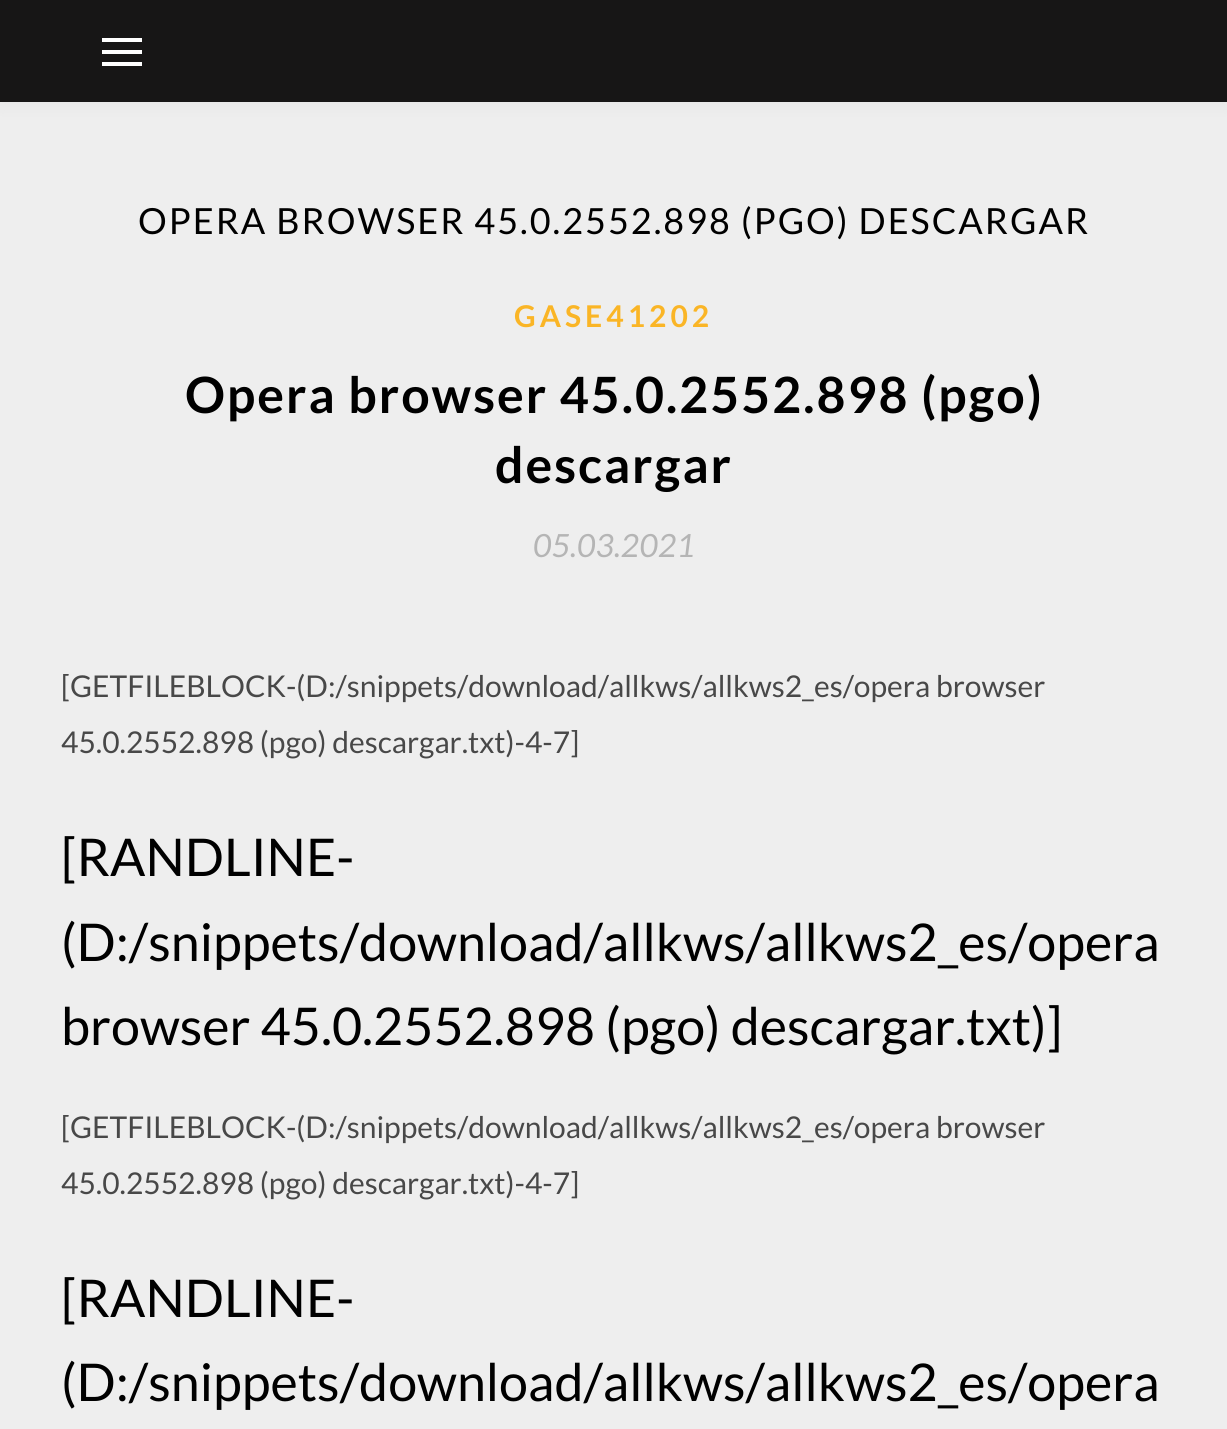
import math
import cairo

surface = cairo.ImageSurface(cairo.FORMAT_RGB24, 1227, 1429)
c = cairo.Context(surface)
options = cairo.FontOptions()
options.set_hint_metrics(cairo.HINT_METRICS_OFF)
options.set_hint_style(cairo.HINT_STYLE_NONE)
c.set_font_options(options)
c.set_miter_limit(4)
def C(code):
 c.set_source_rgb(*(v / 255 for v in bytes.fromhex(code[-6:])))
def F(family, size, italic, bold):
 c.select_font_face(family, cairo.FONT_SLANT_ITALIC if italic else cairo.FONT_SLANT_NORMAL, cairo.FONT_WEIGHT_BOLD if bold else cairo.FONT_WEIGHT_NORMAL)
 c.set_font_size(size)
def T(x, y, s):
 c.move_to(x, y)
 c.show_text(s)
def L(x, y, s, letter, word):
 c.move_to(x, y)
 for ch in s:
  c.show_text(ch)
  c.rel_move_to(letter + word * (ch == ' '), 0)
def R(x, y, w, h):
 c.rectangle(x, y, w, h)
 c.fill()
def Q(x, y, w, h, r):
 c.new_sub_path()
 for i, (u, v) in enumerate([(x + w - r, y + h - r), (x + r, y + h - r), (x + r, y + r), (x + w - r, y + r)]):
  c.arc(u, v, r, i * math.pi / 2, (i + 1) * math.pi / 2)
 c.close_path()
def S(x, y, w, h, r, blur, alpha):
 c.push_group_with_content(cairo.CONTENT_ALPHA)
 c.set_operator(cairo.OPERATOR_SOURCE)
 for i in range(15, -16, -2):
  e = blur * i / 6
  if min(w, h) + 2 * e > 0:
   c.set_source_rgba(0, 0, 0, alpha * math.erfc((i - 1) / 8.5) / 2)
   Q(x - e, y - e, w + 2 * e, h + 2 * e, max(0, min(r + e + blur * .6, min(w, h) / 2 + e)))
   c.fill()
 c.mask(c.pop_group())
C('eeeeee')
c.paint()
C('000000')
S(0,0,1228,102,0,10,.05)
C('171616')
R(0,0,1227,102)
C('ffffff')
R(102,38,40,4)
R(102,50,40,4)
R(102,62,40,4)
F('Lato',36,0,0)
C('000000')
L(138,234,'OPERA BROWSER 45.0.2552.898 (PGO) DESCARGAR',2,0)
F('Lato',30,0,1)
C('fab526')
L(514,327,'GASE41202',4,0)
F('Lato',50,0,1)
C('000000')
L(185,413,'Opera browser 45.0.2552.898 (pgo)',2,0)
L(495,483,'descargar',2,0)
F('Lato',32,1,0)
C('b5b5b5')
T(533,557,'05.03.2021')
F('Lato',30,0,0)
C('484848')
T(61,697,'[GETFILEBLOCK-(D:/snippets/download/allkws/allkws2_es/opera browser')
T(61,753,'45.0.2552.898 (pgo) descargar.txt)-4-7]')
F('Lato',52,0,0)
C('000000')
T(61,876,'[RANDLINE-')
T(61,961,'(D:/snippets/download/allkws/allkws2_es/opera')
T(61,1045,'browser 45.0.2552.898 (pgo) descargar.txt)]')
F('Lato',30,0,0)
C('484848')
T(61,1138,'[GETFILEBLOCK-(D:/snippets/download/allkws/allkws2_es/opera browser')
T(61,1194,'45.0.2552.898 (pgo) descargar.txt)-4-7]')
F('Lato',52,0,0)
C('000000')
T(61,1317,'[RANDLINE-')
T(61,1401,'(D:/snippets/download/allkws/allkws2_es/opera')
surface.write_to_png('o.png')
